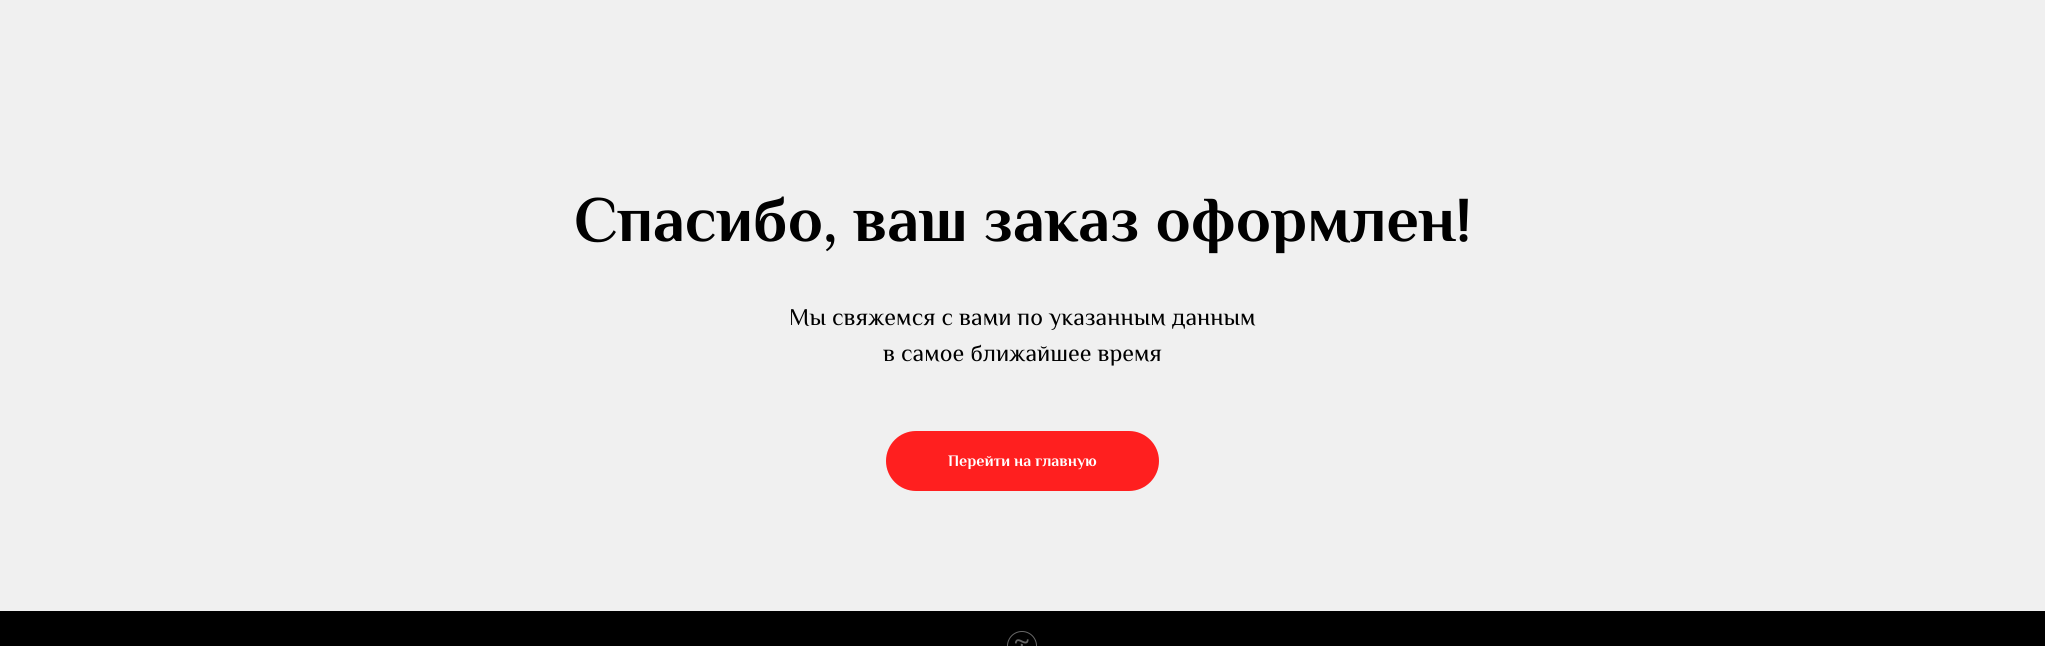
import math
import cairo

surface = cairo.ImageSurface(cairo.FORMAT_RGB24, 2045, 646)
c = cairo.Context(surface)
options = cairo.FontOptions()
options.set_hint_metrics(cairo.HINT_METRICS_OFF)
options.set_hint_style(cairo.HINT_STYLE_NONE)
c.set_font_options(options)
c.set_miter_limit(4)
def C(code):
 c.set_source_rgb(*(v / 255 for v in bytes.fromhex(code[-6:])))
def F(family, size, italic, bold):
 c.select_font_face(family, cairo.FONT_SLANT_ITALIC if italic else cairo.FONT_SLANT_NORMAL, cairo.FONT_WEIGHT_BOLD if bold else cairo.FONT_WEIGHT_NORMAL)
 c.set_font_size(size)
def T(x, y, s):
 c.move_to(x, y)
 c.show_text(s)
def R(x, y, w, h):
 c.rectangle(x, y, w, h)
 c.fill()
def Q(x, y, w, h, r):
 c.new_sub_path()
 for i, (u, v) in enumerate([(x + w - r, y + h - r), (x + r, y + h - r), (x + r, y + r), (x + w - r, y + r)]):
  c.arc(u, v, r, i * math.pi / 2, (i + 1) * math.pi / 2)
 c.close_path()
def I(path, x, y, w, h):
 c.save()
 c.set_source_surface(cairo.ImageSurface.create_from_png(path), x, y)
 c.rectangle(x, y, w, h)
 c.fill()
 c.restore()
C('f0f0f0')
c.paint()
F('Philosopher',64,0,1)
C('000000')
T(574,241,'Спасибо, ваш заказ оформлен!')
F('Philosopher',24,0,0)
T(789,325,'Мы свяжемся с вами по указанным данным')
T(883,361,'в самое ближайшее время')
C('ff1f1f')
Q(886,431,273,60,30)
c.fill()
F('Philosopher',16,0,1)
C('ffffff')
T(948,466,'Перейти на главную')
C('000000')
R(0,611,2045,35)
I('1.png',1007,631,30,15)
surface.write_to_png('o.png')
